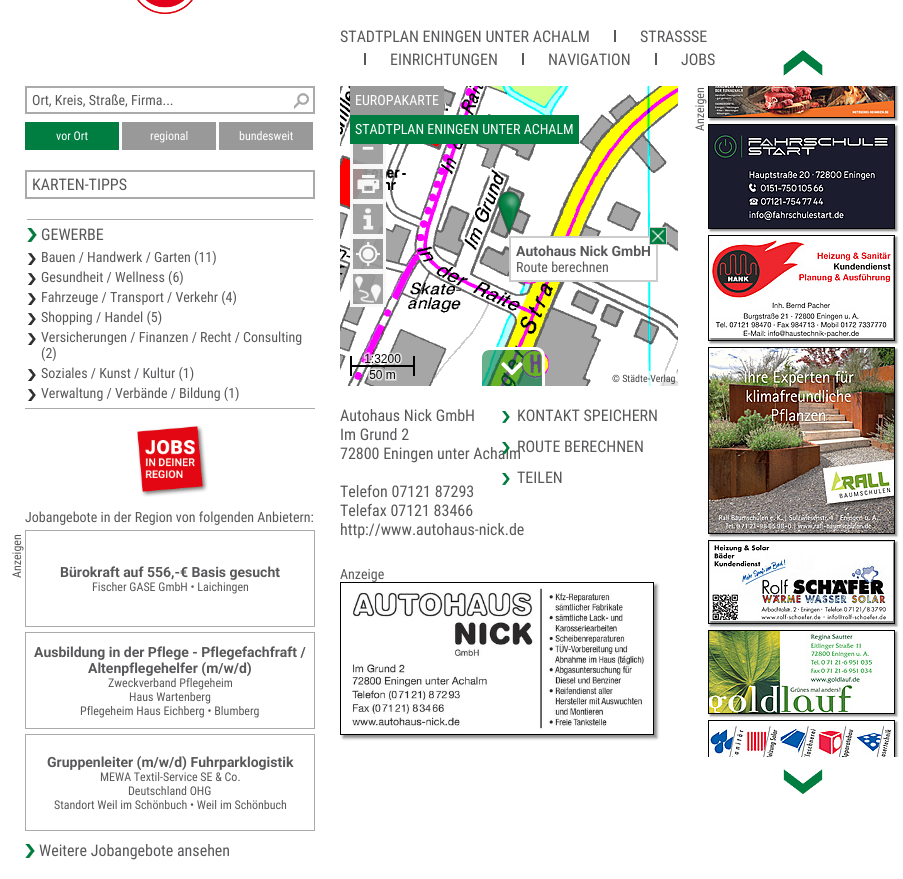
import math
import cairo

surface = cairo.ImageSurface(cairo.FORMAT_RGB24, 903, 879)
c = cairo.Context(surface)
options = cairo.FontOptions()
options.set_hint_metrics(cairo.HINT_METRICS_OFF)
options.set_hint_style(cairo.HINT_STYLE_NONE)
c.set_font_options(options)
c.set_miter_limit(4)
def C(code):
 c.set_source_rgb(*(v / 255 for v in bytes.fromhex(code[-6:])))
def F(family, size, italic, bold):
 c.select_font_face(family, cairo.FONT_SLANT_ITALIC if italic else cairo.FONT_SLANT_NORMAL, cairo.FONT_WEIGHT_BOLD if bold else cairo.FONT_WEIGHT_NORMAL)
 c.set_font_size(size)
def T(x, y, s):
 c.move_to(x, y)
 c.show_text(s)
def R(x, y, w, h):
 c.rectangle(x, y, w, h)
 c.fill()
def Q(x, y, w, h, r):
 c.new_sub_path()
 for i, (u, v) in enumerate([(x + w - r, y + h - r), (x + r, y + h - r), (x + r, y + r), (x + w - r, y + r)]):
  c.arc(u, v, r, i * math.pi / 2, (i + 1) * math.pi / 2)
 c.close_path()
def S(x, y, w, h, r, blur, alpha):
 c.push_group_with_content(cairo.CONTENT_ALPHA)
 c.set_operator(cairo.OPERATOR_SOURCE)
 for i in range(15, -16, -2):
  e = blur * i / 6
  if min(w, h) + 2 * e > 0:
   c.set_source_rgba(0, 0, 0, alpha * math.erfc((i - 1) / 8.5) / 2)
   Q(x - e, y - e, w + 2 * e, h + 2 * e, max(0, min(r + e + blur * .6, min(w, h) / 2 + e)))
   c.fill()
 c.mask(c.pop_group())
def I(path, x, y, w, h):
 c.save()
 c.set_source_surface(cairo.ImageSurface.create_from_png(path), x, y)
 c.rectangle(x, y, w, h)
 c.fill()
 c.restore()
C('ffffff')
c.paint()
I('1.png',137,0,56,14)
F('Roboto Condensed',16,0,0)
C('58585a')
T(340,42,'STADTPLAN ENINGEN UNTER ACHALM')
R(614,30,2,12)
T(640,42,'STRASSSE')
R(364,53,2,12)
T(390,65,'EINRICHTUNGEN')
R(522,53,2,12)
T(548,65,'NAVIGATION')
R(655,53,2,12)
T(681,65,'JOBS')
I('2.png',294,93,15,16)
c.rectangle(26,87,288,26)
C('aaaaaa')
c.stroke()
F('Roboto Condensed',14,0,0)
C('58585a')
T(32,105,'Ort, Kreis, Straße, Firma...')
C('007d40')
R(25,122,94,28)
F('Roboto Condensed',12,0,0)
C('ffffff')
T(56,140,'vor Ort')
C('999999')
R(122,122,94,28)
C('ffffff')
T(150,140,'regional')
C('999999')
R(219,122,94,28)
C('ffffff')
T(239,140,'bundesweit')
c.rectangle(26,171,288,27)
C('aaaaaa')
c.stroke()
F('Roboto Condensed',16,0,0)
C('58585a')
T(32,190,'KARTEN-TIPPS')
I('3.png',27,228,10,14)
C('aaaaaa')
R(27,219,286,1)
C('58585a')
T(41,240,'GEWERBE')
I('4.png',28,253,8,12)
F('Roboto Condensed',14,0,0)
T(41,262,'Bauen / Handwerk / Garten (11)')
I('4.png',28,273,8,12)
T(41,282,'Gesundheit / Wellness (6)')
I('4.png',28,293,8,12)
T(41,302,'Fahrzeuge / Transport / Verkehr (4)')
I('4.png',28,313,8,12)
T(41,322,'Shopping / Handel (5)')
I('4.png',28,333,8,12)
T(41,342,'Versicherungen / Finanzen / Recht / Consulting')
T(41,358,'(2)')
I('4.png',28,369,8,12)
T(41,378,'Soziales / Kunst / Kultur (1)')
I('4.png',28,389,8,12)
T(41,398,'Verwaltung / Verbände / Bildung (1)')
T(25,522,'Jobangebote in der Region von folgenden Anbietern:')
I('5.png',136,425,72,72)
C('aaaaaa')
R(25,408,290,1)
F('Roboto Condensed',12,0,0)
C('58585a')
c.save()
c.translate(21,578)
c.rotate(-90 * math.pi / 180)
T(0,0,'Anzeigen')
c.restore()
c.rectangle(25.5,530.5,289,96)
C('aaaaaa')
c.set_line_width(1)
c.stroke()
F('Roboto',14,0,1)
C('58585a')
T(60,577,'Bürokraft auf 556,-€ Basis gesucht')
F('Roboto Condensed',12,0,0)
T(92,591,'Fischer GASE GmbH • Laichingen')
c.rectangle(25.5,632.5,289,96)
C('aaaaaa')
c.stroke()
F('Roboto',14,0,1)
C('58585a')
T(34,657,'Ausbildung in der Pflege - Pflegefachfraft /')
T(88,673,'Altenpflegehelfer (m/w/d)')
F('Roboto Condensed',12,0,0)
T(108,687,'Zweckverband Pflegeheim')
T(129,701,'Haus Wartenberg')
T(80,715,'Pflegeheim Haus Eichberg • Blumberg')
c.rectangle(25.5,734.5,289,96)
C('aaaaaa')
c.stroke()
F('Roboto',14,0,1)
C('58585a')
T(47,767,'Gruppenleiter (m/w/d) Fuhrparklogistik')
F('Roboto Condensed',12,0,0)
T(100,781,'MEWA Textil-Service SE & Co.')
T(128,795,'Deutschland OHG')
T(54,809,'Standort Weil im Schönbuch • Weil im Schönbuch')
I('3.png',25,844,10,14)
F('Roboto Condensed',16,0,0)
T(39,856,'Weitere Jobangebote ansehen')
I('6.png',340,86,31,60)
I('7.png',371,86,256,60)
C('999999')
R(350,86,94,29)
F('Roboto Condensed',14,0,0)
C('ffffff')
T(355,105,'EUROPAKARTE')
I('9.png',340,151,31,235)
I('10.png',371,146,256,240)
c.set_source_rgba(0.6,0.6,0.6,0.92)
R(350,144,36,23)
c.rectangle(351.5,132.5,33,33)
c.set_source_rgba(1,1,1,0.92)
c.set_line_width(3)
c.stroke()
C('007d40')
R(350,115,229,29)
C('ffffff')
T(355,134,'STADTPLAN ENINGEN UNTER ACHALM')
I('8.png',627,86,51,60)
I('11.png',627,146,51,240)
F('Roboto',25,0,1)
T(361,157,'−')
c.set_source_rgba(0.6,0.6,0.6,0.92)
R(350,166,36,36)
c.rectangle(351.5,167.5,33,33)
c.set_source_rgba(1,1,1,0.92)
c.stroke()
I('12.png',357,175,23,18)
c.set_source_rgba(0.6,0.6,0.6,0.92)
R(350,201,36,36)
c.rectangle(351.5,202.5,33,33)
c.set_source_rgba(1,1,1,0.92)
c.stroke()
I('13.png',363,208,11,22)
I('14.png',497,191,24,44)
c.set_source_rgba(0.6,0.6,0.6,0.92)
R(350,236,36,36)
c.rectangle(351.5,237.5,33,33)
c.set_source_rgba(1,1,1,0.92)
c.stroke()
I('15.png',356,242,24,24)
C('ffffff')
R(511,238,140,42)
c.rectangle(510,237,147,44)
C('cccccc')
c.set_line_width(2)
c.stroke()
I('16.png',650,228,16,16)
c.rectangle(649.5,227.5,17,17)
c.set_line_width(1)
c.stroke()
F('Roboto',14,0,1)
C('58585a')
T(516,256,'Autohaus Nick GmbH')
F('Roboto Condensed',14,0,0)
T(516,272,'Route berechnen')
c.set_source_rgba(0.6,0.6,0.6,0.92)
R(350,271,36,36)
c.rectangle(351.5,272.5,33,33)
c.set_source_rgba(1,1,1,0.92)
c.set_line_width(3)
c.stroke()
I('17.png',355,276,26,27)
I('18.png',350,352,65,29)
c.set_source_rgba(0,0.49,0.251,0.6)
c.new_path()
c.move_to(489,350)
c.line_to(535,350)
c.curve_to(539,350,542,353,542,357)
c.line_to(542,386)
c.line_to(482,386)
c.line_to(482,357)
c.curve_to(482,353,485,350,489,350)
c.close_path()
c.fill()
C('ffffff')
c.set_fill_rule(cairo.FILL_RULE_EVEN_ODD)
c.new_path()
c.move_to(489,347)
c.line_to(535,347)
c.curve_to(541,347,545,351,545,357)
c.line_to(545,386)
c.line_to(479,386)
c.line_to(479,357)
c.curve_to(479,351,483,347,489,347)
c.close_path()
c.move_to(489,350)
c.line_to(535,350)
c.curve_to(539,350,542,353,542,357)
c.line_to(542,386)
c.line_to(482,386)
c.line_to(482,357)
c.curve_to(482,353,485,350,489,350)
c.close_path()
c.fill()
I('19.png',501,362,22,14)
c.set_source_rgba(1,1,1,0.7)
R(648,371,30,15)
F('Roboto Condensed',10,0,0)
C('444444')
T(612,382,'© Städte-Verlag')
F('Roboto Condensed',16,0,0)
C('58585a')
T(340,421,'Autohaus Nick GmbH')
T(340,440,'Im Grund 2')
T(340,459,'72800 Eningen unter Achalm')
T(340,497,'Telefon 07121 87293')
T(340,516,'Telefax 07121 83466')
T(340,535,'http://www.autohaus-nick.de')
I('20.png',502,411,8,12)
T(517,421,'KONTAKT SPEICHERN')
I('21.png',502,442,8,12)
T(517,452,'ROUTE BERECHNEN')
I('20.png',502,473,8,12)
T(517,483,'TEILEN')
F('Roboto Condensed',14,0,0)
T(340,579,'Anzeige')
c.save()
c.new_path()
c.move_to(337,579)
c.line_to(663,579)
c.line_to(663,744)
c.line_to(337,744)
c.close_path()
c.move_to(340,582)
c.line_to(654,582)
c.line_to(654,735)
c.line_to(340,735)
c.close_path()
c.clip()
C('888888')
S(343,585,314,153,0,1.5,1)
c.restore()
c.rectangle(340.5,582.5,313,152)
C('000000')
c.set_line_width(1)
c.stroke()
I('22.png',351,588,294,141)
I('23.png',783,50,40,26)
c.save()
c.set_fill_rule(cairo.FILL_RULE_WINDING)
c.rectangle(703,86,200,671)
c.clip()
C('888888')
S(710,69,187,51,0,1,1)
c.restore()
C('888888')
S(710,126,187,105,0,1,1)
F('Roboto Condensed',12,0,0)
C('58585a')
c.save()
c.translate(704,131)
c.rotate(-90 * math.pi / 180)
T(0,0,'Anzeigen')
c.restore()
c.save()
c.set_fill_rule(cairo.FILL_RULE_WINDING)
c.rectangle(703,86,200,671)
c.clip()
c.rectangle(708.5,67.5,186,50)
C('000000')
c.stroke()
c.restore()
I('24.png',709,86,185,31)
c.rectangle(708.5,124.5,186,104)
C('000000')
c.stroke()
I('25.png',709,125,185,103)
C('888888')
S(710,237,187,106,0,1,1)
c.rectangle(708.5,235.5,186,105)
C('000000')
c.stroke()
I('26.png',709,236,184,102)
C('888888')
S(710,349,187,187,0,1,1)
c.rectangle(708.5,347.5,186,186)
C('000000')
c.stroke()
I('27.png',709,348,185,185)
C('888888')
S(710,542,187,84,0,1,1)
c.rectangle(708.5,540.5,186,83)
C('000000')
c.stroke()
I('28.png',710,542,183,79)
c.save()
c.new_path()
c.move_to(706,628)
c.line_to(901,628)
c.line_to(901,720)
c.line_to(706,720)
c.close_path()
c.move_to(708,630)
c.line_to(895,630)
c.line_to(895,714)
c.line_to(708,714)
c.close_path()
c.clip()
C('888888')
S(710,632,187,84,0,1,1)
c.restore()
c.rectangle(708.5,630.5,186,83)
c.stroke()
I('29.png',709,631,168,82)
I('31.png',783,769,40,25)
c.save()
c.set_fill_rule(cairo.FILL_RULE_WINDING)
c.rectangle(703,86,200,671)
c.clip()
c.rectangle(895,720,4,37)
c.clip()
C('888888')
S(710,722,187,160,0,1,1)
c.restore()
c.save()
c.set_fill_rule(cairo.FILL_RULE_WINDING)
c.rectangle(703,86,200,671)
c.clip()
c.rectangle(708.5,720.5,186,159)
c.stroke()
c.restore()
I('30.png',709,724,183,33)
surface.write_to_png('o.png')
